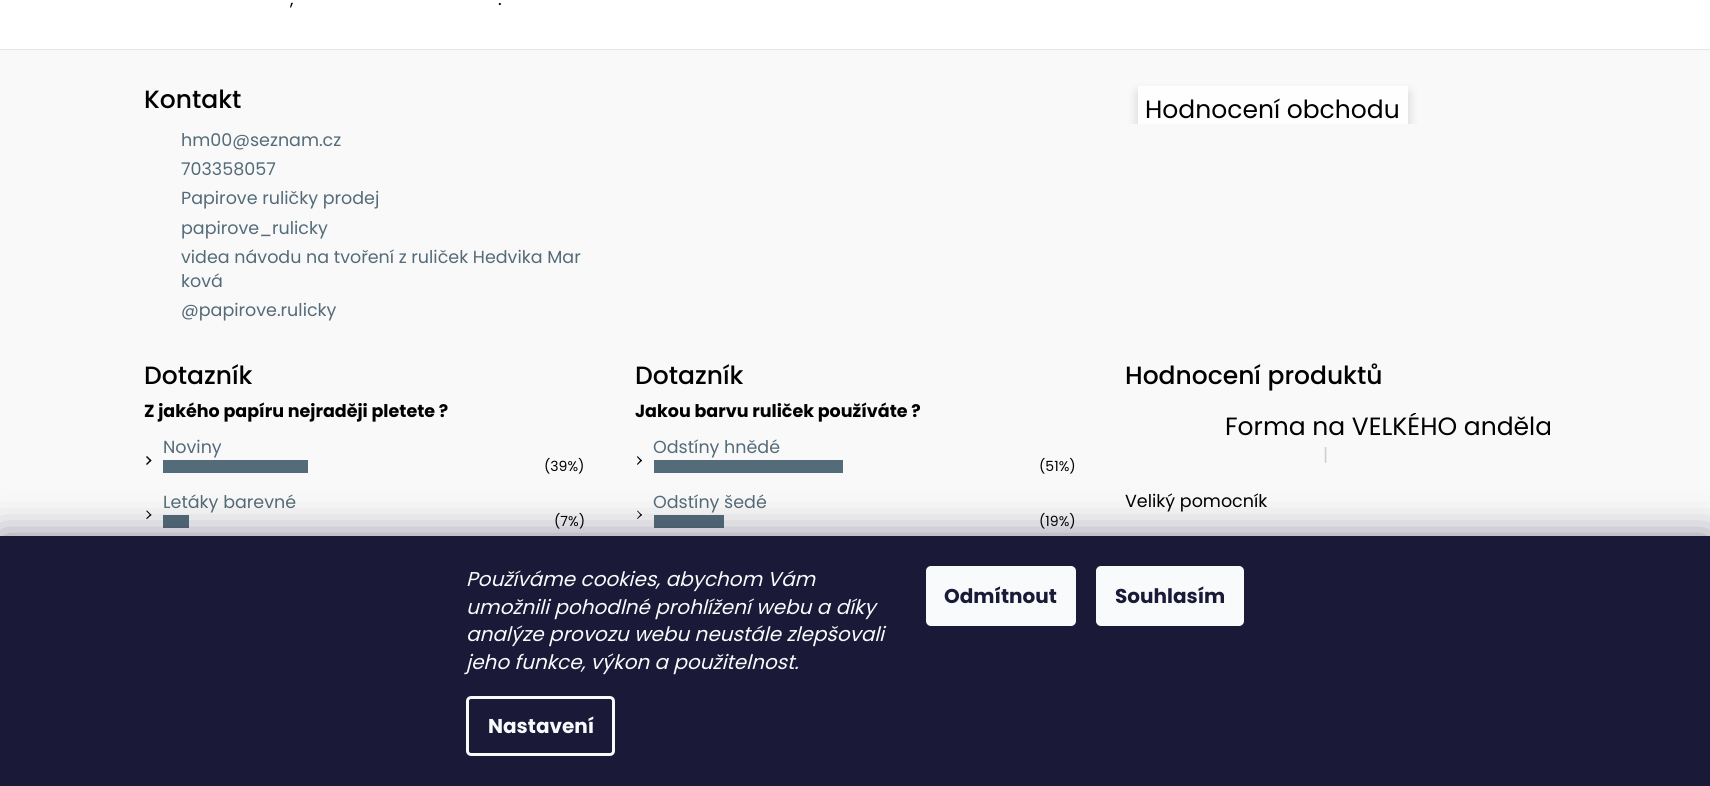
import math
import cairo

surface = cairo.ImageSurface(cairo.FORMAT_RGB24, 1710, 786)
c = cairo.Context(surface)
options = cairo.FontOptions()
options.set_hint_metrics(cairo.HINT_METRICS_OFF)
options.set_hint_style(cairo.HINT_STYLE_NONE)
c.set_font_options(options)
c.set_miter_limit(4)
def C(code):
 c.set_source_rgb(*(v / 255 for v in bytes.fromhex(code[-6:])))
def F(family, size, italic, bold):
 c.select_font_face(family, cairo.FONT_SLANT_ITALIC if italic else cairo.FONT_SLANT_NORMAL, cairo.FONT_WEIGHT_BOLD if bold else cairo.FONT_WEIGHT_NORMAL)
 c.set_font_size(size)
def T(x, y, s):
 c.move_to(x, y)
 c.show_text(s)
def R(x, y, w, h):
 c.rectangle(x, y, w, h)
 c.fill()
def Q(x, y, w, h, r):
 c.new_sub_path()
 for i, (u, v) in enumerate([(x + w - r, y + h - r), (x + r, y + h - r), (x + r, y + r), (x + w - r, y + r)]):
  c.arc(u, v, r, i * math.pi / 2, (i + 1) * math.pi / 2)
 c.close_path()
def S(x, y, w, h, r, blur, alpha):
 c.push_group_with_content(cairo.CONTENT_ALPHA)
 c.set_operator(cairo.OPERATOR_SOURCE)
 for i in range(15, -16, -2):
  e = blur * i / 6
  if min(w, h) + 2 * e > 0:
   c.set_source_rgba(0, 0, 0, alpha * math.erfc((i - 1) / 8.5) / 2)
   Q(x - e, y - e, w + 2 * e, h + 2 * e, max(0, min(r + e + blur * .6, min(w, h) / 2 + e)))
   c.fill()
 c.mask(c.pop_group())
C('ffffff')
c.paint()
F('Poppins',17.5,0,0)
C('000000')
T(290,5,',')
T(498,5,'.')
C('f9f9f9')
R(0,50,1710,486)
C('e6e6e6')
R(0,49,1710,1)
F('Poppins Medium',25,0,0)
C('000000')
T(144,108,'Kontakt')
F('Poppins',17.5,0,0)
C('546b79')
T(181,146,'hm00@seznam.cz')
T(181,175,'703358057')
T(181,204,'Papirove ruličky prodej')
T(181,234,'papirove_rulicky')
T(181,263,'videa návodu na tvoření z ruliček Hedvika Mar')
T(181,287,'ková')
T(181,316,'@papirove.rulicky')
c.save()
c.rectangle(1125,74,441,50)
c.clip()
c.set_fill_rule(cairo.FILL_RULE_EVEN_ODD)
c.new_path()
c.move_to(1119,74)
c.line_to(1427,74)
c.line_to(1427,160)
c.line_to(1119,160)
c.close_path()
c.move_to(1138,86)
c.line_to(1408,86)
c.line_to(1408,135)
c.line_to(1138,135)
c.close_path()
c.clip()
C('000000')
S(1138,93,270,48,0,6,.16)
c.restore()
c.set_source_rgba(1,1,1,0.9)
R(1139,87,268,37)
c.save()
c.rectangle(1125,74,441,50)
c.clip()
c.rectangle(1138.5,86.5,269,48)
C('ffffff')
c.set_line_width(1)
c.stroke()
c.restore()
F('Poppins',25,0,0)
C('000000')
T(1145,118,'Hodnocení obchodu')
F('Poppins Medium',25,0,0)
T(144,384,'Dotazník')
F('Poppins',17.5,0,1)
T(144,417,'Z jakého papíru nejraději pletete ?')
F('Poppins',17.5,0,0)
C('546b79')
T(163,453,'Noviny')
C('000000')
c.new_path()
c.move_to(146,457)
c.line_to(147,456)
c.line_to(151.5,460.5)
c.line_to(150.5,461.5)
c.close_path()
c.fill()
c.new_path()
c.move_to(146,464)
c.line_to(150.5,459.5)
c.line_to(151.5,460.5)
c.line_to(147,465)
c.close_path()
c.fill()
C('546b79')
R(163,460,145,13)
F('Poppins',14,0,0)
C('000000')
T(544,471,'(39%)')
F('Poppins',17.5,0,0)
C('546b79')
T(163,508,'Letáky barevné')
C('000000')
c.new_path()
c.move_to(146,511)
c.line_to(147,510.5)
c.line_to(151.5,515)
c.line_to(150.5,515.5)
c.close_path()
c.fill()
c.new_path()
c.move_to(146,518.5)
c.line_to(150.5,514)
c.line_to(151.5,515)
c.line_to(147,519)
c.close_path()
c.fill()
C('546b79')
R(163,515,26,13)
F('Poppins',14,0,0)
C('000000')
T(554,526,'(7%)')
F('Poppins Medium',25,0,0)
T(635,384,'Dotazník')
F('Poppins',17.5,0,1)
T(635,417,'Jakou barvu ruliček používáte ?')
F('Poppins',17.5,0,0)
C('546b79')
T(653,453,'Odstíny hnědé')
C('000000')
c.new_path()
c.move_to(637,457)
c.line_to(637.5,456)
c.line_to(642,460.5)
c.line_to(641,461.5)
c.close_path()
c.fill()
c.new_path()
c.move_to(637,464)
c.line_to(641,459.5)
c.line_to(642,460.5)
c.line_to(637.5,465)
c.close_path()
c.fill()
C('546b79')
R(654,460,189,13)
F('Poppins',14,0,0)
C('000000')
T(1039,471,'(51%)')
F('Poppins',17.5,0,0)
C('546b79')
T(653,508,'Odstíny šedé')
C('000000')
c.new_path()
c.move_to(637,511)
c.line_to(637.5,510.5)
c.line_to(642,515)
c.line_to(641,515.5)
c.close_path()
c.fill()
c.new_path()
c.move_to(637,518.5)
c.line_to(641,514)
c.line_to(642,515)
c.line_to(637.5,519)
c.close_path()
c.fill()
C('546b79')
R(654,515,70,13)
F('Poppins',14,0,0)
C('000000')
T(1039,526,'(19%)')
F('Poppins Medium',25,0,0)
T(1125,384,'Hodnocení produktů')
c.save()
c.rectangle(1225,413,341,27)
c.clip()
F('Poppins',25,0,0)
T(1225,435,'Forma na VELKÉHO anděla')
c.restore()
F('Poppins',17.5,0,0)
C('cfcfcf')
T(1323,461,'|')
C('000000')
T(1125,507,'Veliký pomocník')
C('1b1939')
S(0,536,1710,250,0,19,.5)
C('1a1937')
R(0,536,1710,250)
F('Poppins',20,1,0)
C('f8fafb')
T(466,586,'Používáme cookies, abychom Vám')
T(466,614,'umožnili pohodlné prohlížení webu a díky')
T(466,641,'analýze provozu webu neustále zlepšovali')
T(466,669,'jeho funkce, výkon a použitelnost.')
Q(467.5,697.5,146,57,3.5)
c.set_line_width(3)
c.stroke()
F('Poppins',20,0,1)
T(488,733,'Nastavení')
Q(926,566,150,60,5)
c.fill()
C('1a1937')
T(944,603,'Odmítnout')
C('f8fafb')
Q(1096,566,148,60,5)
c.fill()
C('1a1937')
T(1115,603,'Souhlasím')
surface.write_to_png('o.png')
